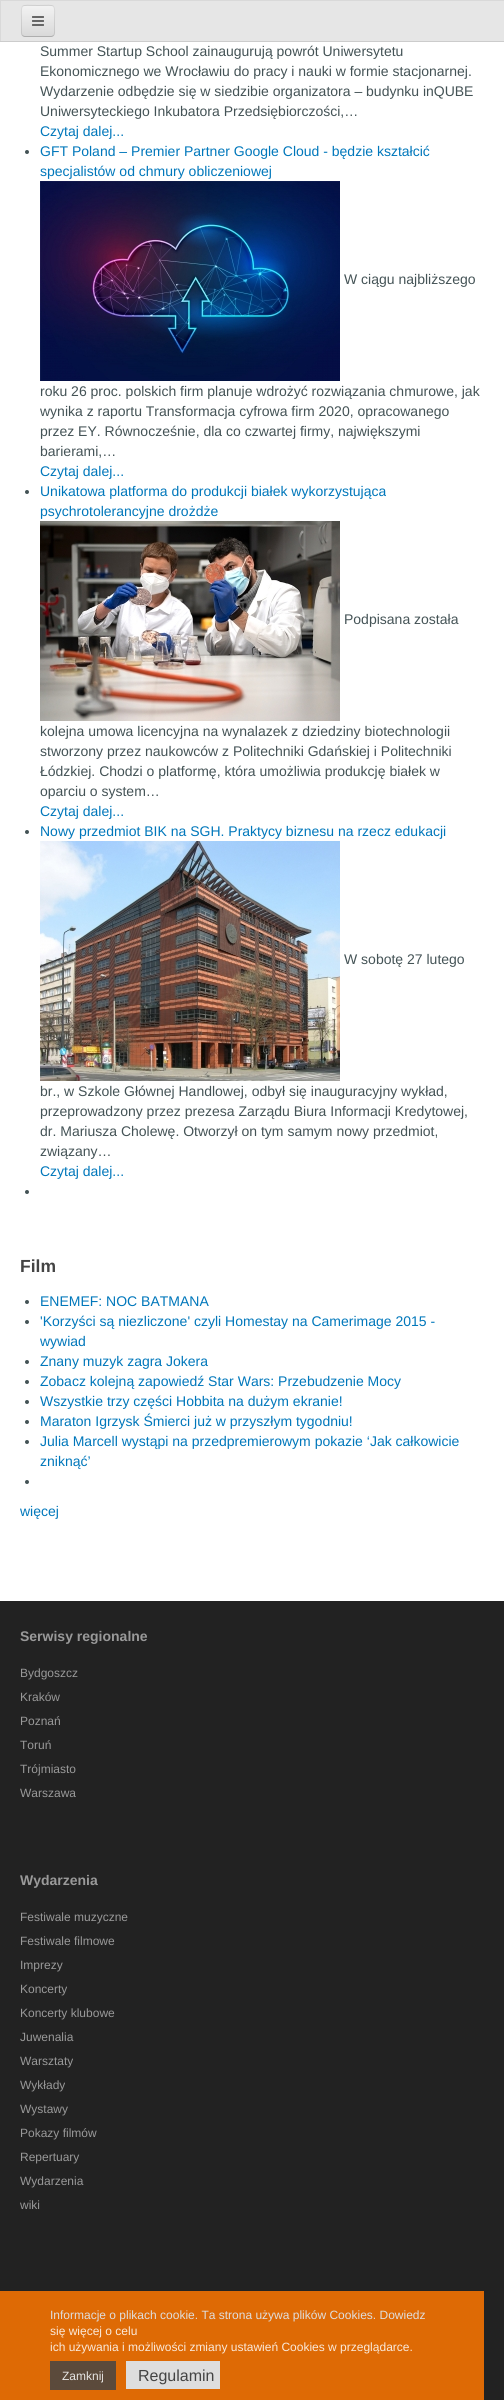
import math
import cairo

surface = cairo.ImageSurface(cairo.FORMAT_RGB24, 504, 2400)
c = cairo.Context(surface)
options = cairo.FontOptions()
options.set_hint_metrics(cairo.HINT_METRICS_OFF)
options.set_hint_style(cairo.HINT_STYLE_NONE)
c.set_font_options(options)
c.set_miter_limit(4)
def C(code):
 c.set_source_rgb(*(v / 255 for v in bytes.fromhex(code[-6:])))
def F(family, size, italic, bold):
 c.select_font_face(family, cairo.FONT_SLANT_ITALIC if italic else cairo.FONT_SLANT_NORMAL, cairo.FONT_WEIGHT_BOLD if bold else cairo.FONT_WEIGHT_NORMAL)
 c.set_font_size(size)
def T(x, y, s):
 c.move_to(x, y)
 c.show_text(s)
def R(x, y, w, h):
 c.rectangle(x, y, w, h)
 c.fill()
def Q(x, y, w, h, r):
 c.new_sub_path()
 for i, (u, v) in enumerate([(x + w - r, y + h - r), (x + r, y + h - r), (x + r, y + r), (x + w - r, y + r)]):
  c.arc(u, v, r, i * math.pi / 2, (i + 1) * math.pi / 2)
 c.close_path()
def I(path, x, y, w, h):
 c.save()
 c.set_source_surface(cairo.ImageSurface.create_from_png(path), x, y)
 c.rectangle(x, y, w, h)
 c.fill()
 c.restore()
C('ffffff')
c.paint()
C('e6e6e6')
R(1,1,503,40)
C('d9d9d9')
R(0,0,504,1)
C('cccccc')
R(0,41,504,1)
C('d9d9d9')
R(0,1,1,40)
c.save()
Q(21,5,34,32,4)
c.clip()
gradient = cairo.LinearGradient(38,6,38,36)
gradient.add_color_stop_rgba(0,0.949,0.949,0.949,1)
gradient.add_color_stop_rgba(1,0.851,0.851,0.851,1)
c.set_source(gradient)
R(21,6,34,30)
c.restore()
c.new_path()
c.move_to(53.5,35.5)
c.curve_to(53,36,52,36.5,51,36.5)
c.line_to(25,36.5)
c.curve_to(24,36.5,23,36,22.5,35.5)
C('aeaeae')
c.set_line_width(1)
c.stroke()
c.new_path()
c.move_to(22.5,35.5)
c.curve_to(21,34,21.5,31,21.5,29)
c.line_to(21.5,21)
c.curve_to(21.5,2.5,19,5.5,38,5.5)
c.curve_to(57,5.5,54.5,2.5,54.5,21)
c.line_to(54.5,29)
c.curve_to(54.5,31,55,34,53.5,35.5)
c.set_source_rgba(0,0,0,0.1)
c.stroke()
I('1.png',32,16,12,10)
F('Liberation Sans',14,0,0)
C('445356')
T(40,56,'Summer Startup School zainaugurują powrót Uniwersytetu')
T(40,76,'Ekonomicznego we Wrocławiu do pracy i nauki w formie stacjonarnej.')
T(40,96,'Wydarzenie odbędzie się w siedzibie organizatora – budynku inQUBE')
T(40,116,'Uniwersyteckiego Inkubatora Przedsiębiorczości,…')
C('0077bb')
T(40,136,'Czytaj dalej...')
C('445356')
c.new_path()
c.arc(27,152,2,0,2 * math.pi)
c.fill()
C('0077bb')
T(40,156,'GFT Poland – Premier Partner Google Cloud - będzie kształcić')
T(40,176,'specjalistów od chmury obliczeniowej')
I('2.png',40,181,300,200)
C('445356')
T(344,284,'W ciągu najbliższego')
T(40,396,'roku 26 proc. polskich firm planuje wdrożyć rozwiązania chmurowe, jak')
T(40,416,'wynika z raportu Transformacja cyfrowa firm 2020, opracowanego')
T(40,436,'przez EY. Równocześnie, dla co czwartej firmy, największymi')
T(40,456,'barierami,…')
C('0077bb')
T(40,476,'Czytaj dalej...')
C('445356')
c.new_path()
c.arc(27,492,2,0,2 * math.pi)
c.fill()
C('0077bb')
T(40,496,'Unikatowa platforma do produkcji białek wykorzystująca')
T(40,516,'psychrotolerancyjne drożdże')
I('3.png',40,521,300,200)
C('445356')
T(344,624,'Podpisana została')
T(40,736,'kolejna umowa licencyjna na wynalazek z dziedziny biotechnologii')
T(40,756,'stworzony przez naukowców z Politechniki Gdańskiej i Politechniki')
T(40,776,'Łódzkiej. Chodzi o platformę, która umożliwia produkcję białek w')
T(40,796,'oparciu o system…')
C('0077bb')
T(40,816,'Czytaj dalej...')
C('445356')
c.new_path()
c.arc(27,832,2,0,2 * math.pi)
c.fill()
C('0077bb')
T(40,836,'Nowy przedmiot BIK na SGH. Praktycy biznesu na rzecz edukacji')
I('4.png',40,841,300,240)
C('445356')
T(344,964,'W sobotę 27 lutego')
T(40,1096,'br., w Szkole Głównej Handlowej, odbył się inauguracyjny wykład,')
T(40,1116,'przeprowadzony przez prezesa Zarządu Biura Informacji Kredytowej,')
T(40,1136,'dr. Mariusza Cholewę. Otworzył on tym samym nowy przedmiot,')
T(40,1156,'związany…')
C('0077bb')
T(40,1176,'Czytaj dalej...')
C('445356')
c.new_path()
c.arc(27,1192,2,0,2 * math.pi)
c.fill()
F('Liberation Sans',17.5,0,1)
C('444444')
T(20,1272,'Film')
C('445356')
c.new_path()
c.arc(27,1302,2,0,2 * math.pi)
c.fill()
F('Liberation Sans',14,0,0)
C('0077bb')
T(40,1306,'ENEMEF: NOC BATMANA')
C('445356')
c.new_path()
c.arc(27,1322,2,0,2 * math.pi)
c.fill()
C('0077bb')
T(40,1326,'\'Korzyści są niezliczone\' czyli Homestay na Camerimage 2015 -')
T(40,1346,'wywiad')
C('445356')
c.new_path()
c.arc(27,1362,2,0,2 * math.pi)
c.fill()
C('0077bb')
T(40,1366,'Znany muzyk zagra Jokera')
C('445356')
c.new_path()
c.arc(27,1382,2,0,2 * math.pi)
c.fill()
C('0077bb')
T(40,1386,'Zobacz kolejną zapowiedź Star Wars: Przebudzenie Mocy')
C('445356')
c.new_path()
c.arc(27,1402,2,0,2 * math.pi)
c.fill()
C('0077bb')
T(40,1406,'Wszystkie trzy części Hobbita na dużym ekranie!')
C('445356')
c.new_path()
c.arc(27,1422,2,0,2 * math.pi)
c.fill()
C('0077bb')
T(40,1426,'Maraton Igrzysk Śmierci już w przyszłym tygodniu!')
C('445356')
c.new_path()
c.arc(27,1442,2,0,2 * math.pi)
c.fill()
C('0077bb')
T(40,1446,'Julia Marcell wystąpi na przedpremierowym pokazie ‘Jak całkowicie')
T(40,1466,'zniknąć’')
C('445356')
c.new_path()
c.arc(27,1482,2,0,2 * math.pi)
c.fill()
C('0077bb')
T(20,1516,'więcej')
C('222222')
R(0,1601,504,799)
F('Liberation Sans',14,0,1)
C('999999')
T(20,1641,'Serwisy regionalne')
F('Liberation Sans',12,0,0)
T(20,1677,'Bydgoszcz')
T(20,1701,'Kraków')
T(20,1725,'Poznań')
T(20,1749,'Toruń')
T(20,1773,'Trójmiasto')
T(20,1797,'Warszawa')
F('Liberation Sans',14,0,1)
T(20,1885,'Wydarzenia')
F('Liberation Sans',12,0,0)
T(20,1921,'Festiwale muzyczne')
T(20,1945,'Festiwale filmowe')
T(20,1969,'Imprezy')
T(20,1993,'Koncerty')
T(20,2017,'Koncerty klubowe')
T(20,2041,'Juwenalia')
T(20,2065,'Warsztaty')
T(20,2089,'Wykłady')
T(20,2113,'Wystawy')
T(20,2137,'Pokazy filmów')
T(20,2161,'Repertuary')
T(20,2185,'Wydarzenia')
T(20,2209,'wiki')
c.set_source_rgba(1,0.467,0,0.85)
R(0,2291,484,109)
C('dedede')
T(50,2319,'Informacje o plikach cookie. Ta strona używa plików Cookies. Dowiedz')
C('fae9da')
T(50,2335,'się więcej o celu')
T(50,2351,'ich używania i możliwości zmiany ustawień Cookies w przeglądarce.')
c.set_source_rgba(0.267,0.267,0.267,0.85)
R(50,2361,66,29)
C('e6e4e2')
T(62,2380,'Zamknij')
C('dedede')
R(126,2361,94,28)
F('Liberation Sans',16,0,0)
C('444444')
T(138,2381,'Regulamin')
surface.write_to_png('o.png')
